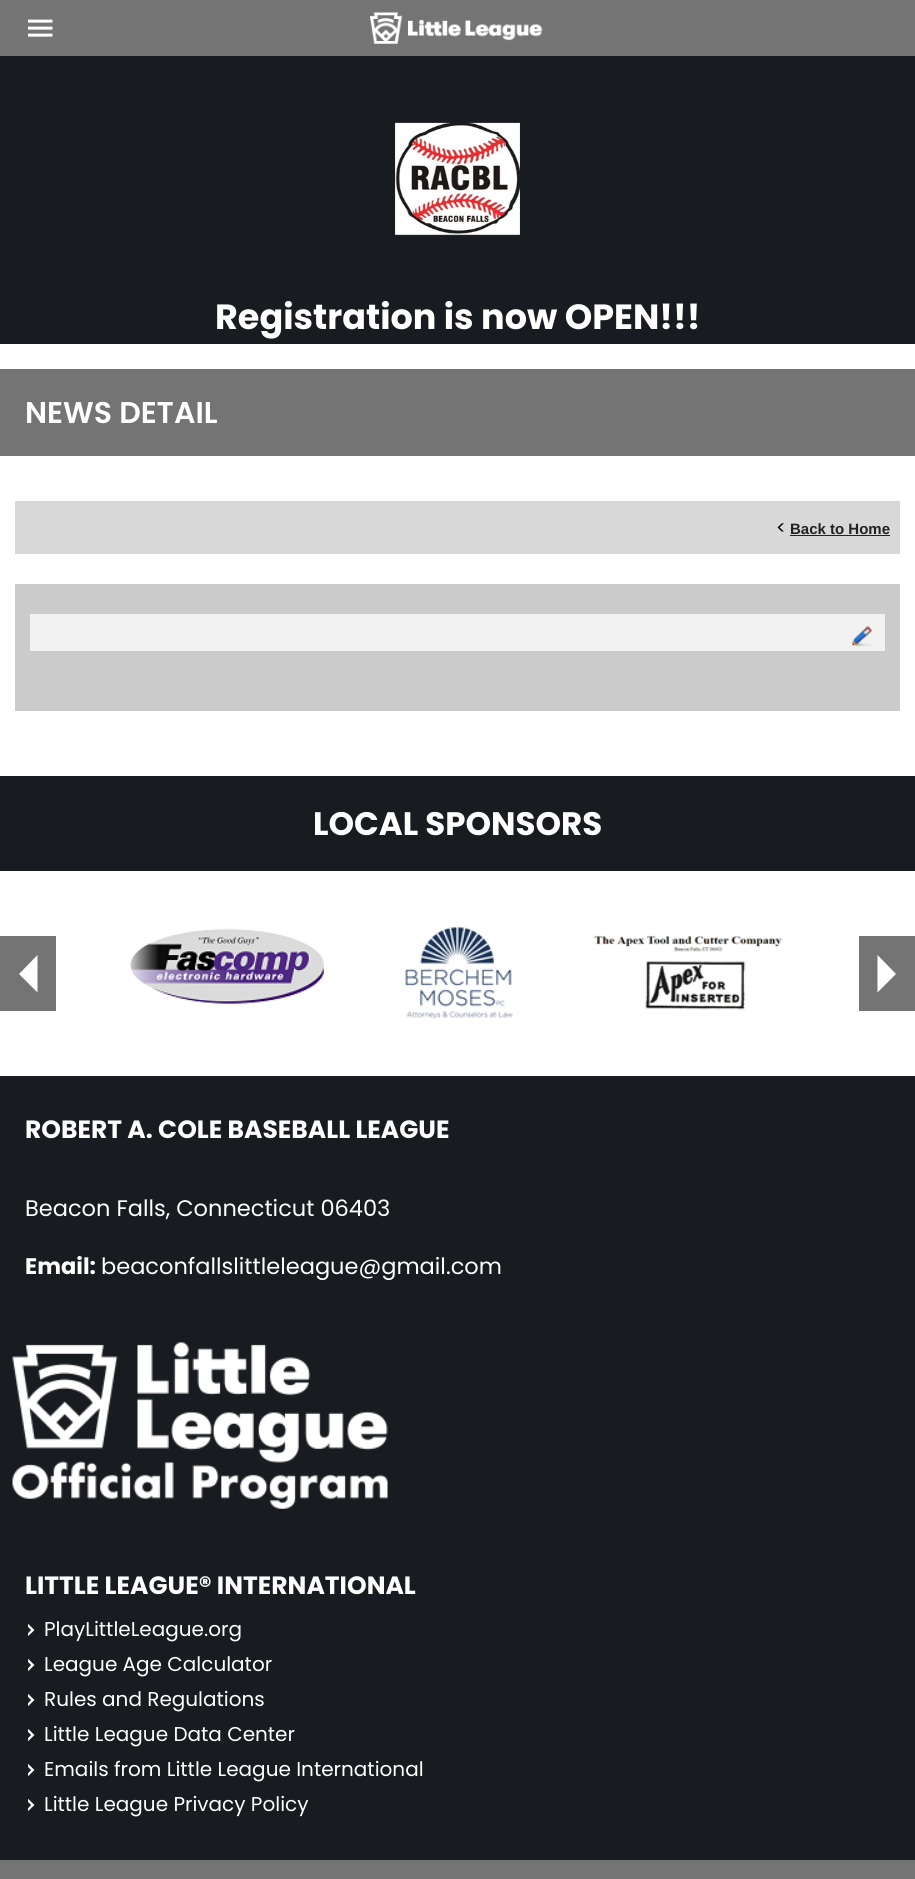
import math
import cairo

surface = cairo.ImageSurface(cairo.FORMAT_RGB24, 915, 1879)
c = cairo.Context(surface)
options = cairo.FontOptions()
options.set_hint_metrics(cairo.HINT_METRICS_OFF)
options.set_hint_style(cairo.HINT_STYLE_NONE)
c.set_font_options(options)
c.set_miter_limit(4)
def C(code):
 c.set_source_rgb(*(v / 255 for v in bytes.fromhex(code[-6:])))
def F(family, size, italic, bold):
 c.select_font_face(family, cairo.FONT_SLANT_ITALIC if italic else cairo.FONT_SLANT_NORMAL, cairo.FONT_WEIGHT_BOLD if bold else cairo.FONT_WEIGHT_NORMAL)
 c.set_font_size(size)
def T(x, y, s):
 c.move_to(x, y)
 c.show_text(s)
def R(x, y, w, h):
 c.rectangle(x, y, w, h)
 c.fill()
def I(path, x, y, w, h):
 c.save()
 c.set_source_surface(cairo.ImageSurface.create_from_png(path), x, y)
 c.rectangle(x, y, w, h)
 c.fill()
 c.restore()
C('181b1f')
c.paint()
C('747474')
R(0,0,915,56)
I('1.png',28,19,25,18)
I('2.png',370,12,173,32)
I('3.png',395,122,125,114)
F('Poppins',35,0,1)
C('ffffff')
T(215,329,'Registration is now OPEN!!!')
R(0,344,915,432)
C('747474')
R(0,369,915,87)
F('Poppins SemiBold',30,0,0)
C('ffffff')
T(25,423,'NEWS DETAIL')
C('d8d8d8')
R(15,501,885,53)
F('Poppins',18,0,0)
C('000000')
T(776,534,'<')
F('Liberation Sans',15,0,1)
C('222222')
T(790,534,'Back to Home')
R(790,535,100,1)
C('cbcbcb')
R(15,584,885,127)
C('f2f2f2')
R(30,614,855,37)
I('4.png',852,626,21,21)
F('Poppins',32.5,0,1)
C('ffffff')
T(313,835,'LOCAL SPONSORS')
R(0,871,915,205)
C('747474')
R(0,936,56,75)
C('ffffff')
c.new_path()
c.move_to(37.5,955)
c.line_to(37.5,992.5)
c.line_to(19,974)
c.close_path()
c.fill()
I('5.png',130,928,194,76)
I('6.png',404,926,110,93)
I('7.png',593,935,189,75)
C('747474')
R(859,936,56,75)
C('ffffff')
c.new_path()
c.move_to(877.5,992.5)
c.line_to(877.5,955)
c.line_to(896,974)
c.close_path()
c.fill()
F('Poppins',25,0,1)
T(25,1138,'ROBERT A. COLE BASEBALL LEAGUE')
F('Poppins',22.5,0,0)
T(25,1216,'Beacon Falls, Connecticut 06403')
F('Poppins',22.5,0,1)
T(25,1274,'Email:')
F('Poppins',22.5,0,0)
T(101,1274,'beaconfallslittleleague@gmail.com')
I('8.png',12,1342,376,167)
F('Poppins',25,0,1)
T(25,1594,'LITTLE LEAGUE® INTERNATIONAL')
I('9.png',28,1624,7,12)
F('Poppins',20,0,0)
T(44,1636,'PlayLittleLeague.org')
I('9.png',28,1659,7,12)
T(44,1671,'League Age Calculator')
I('9.png',28,1694,7,12)
T(44,1706,'Rules and Regulations')
I('9.png',28,1729,7,12)
T(44,1741,'Little League Data Center')
I('9.png',28,1764,7,12)
T(44,1776,'Emails from Little League International')
I('9.png',28,1799,7,12)
T(44,1811,'Little League Privacy Policy')
C('747474')
R(0,1860,915,19)
surface.write_to_png('o.png')
